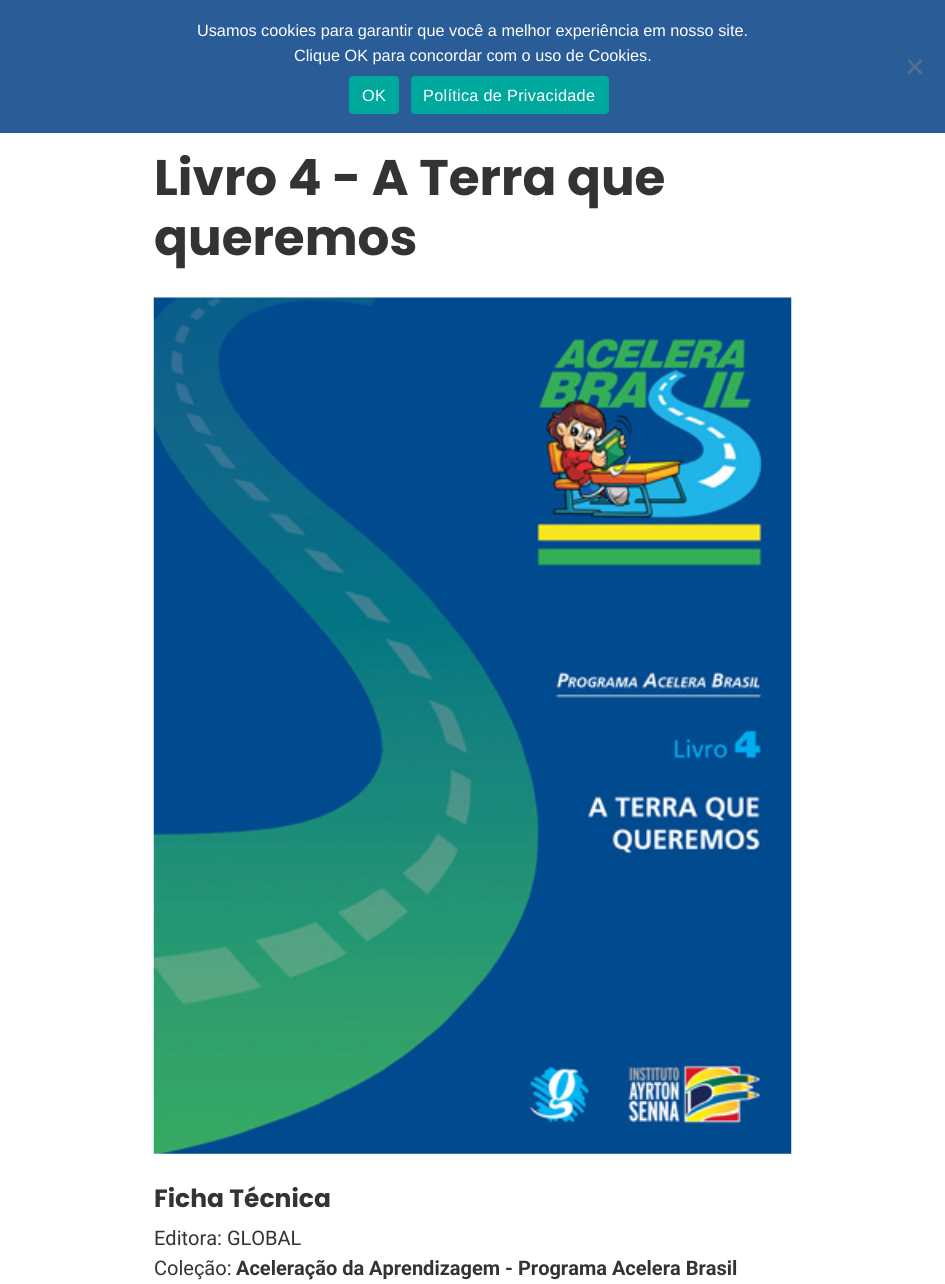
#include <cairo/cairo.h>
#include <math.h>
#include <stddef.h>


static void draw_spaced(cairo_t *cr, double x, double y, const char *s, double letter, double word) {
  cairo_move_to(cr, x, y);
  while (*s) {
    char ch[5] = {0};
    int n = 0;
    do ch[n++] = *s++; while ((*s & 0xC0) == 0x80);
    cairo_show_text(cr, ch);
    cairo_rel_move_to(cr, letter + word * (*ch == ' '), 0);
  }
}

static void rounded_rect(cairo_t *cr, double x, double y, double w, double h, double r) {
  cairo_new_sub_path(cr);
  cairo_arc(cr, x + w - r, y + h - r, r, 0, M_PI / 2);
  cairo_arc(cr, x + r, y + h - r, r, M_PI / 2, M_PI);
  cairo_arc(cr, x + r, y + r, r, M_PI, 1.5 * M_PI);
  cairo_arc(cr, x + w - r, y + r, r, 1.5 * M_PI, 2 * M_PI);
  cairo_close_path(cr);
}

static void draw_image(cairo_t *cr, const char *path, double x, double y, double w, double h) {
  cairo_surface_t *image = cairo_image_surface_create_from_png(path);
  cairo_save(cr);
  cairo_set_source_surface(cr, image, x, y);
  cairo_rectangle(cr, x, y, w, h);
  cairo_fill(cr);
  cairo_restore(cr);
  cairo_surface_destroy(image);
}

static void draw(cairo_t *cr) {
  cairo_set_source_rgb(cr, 1, 1, 1);
  cairo_paint(cr);
  cairo_set_source_rgb(cr, 42 / 255.0, 93 / 255.0, 152 / 255.0);
  cairo_rectangle(cr, 0, 0, 945, 133);
  cairo_fill(cr);
  cairo_set_source_rgb(cr, 85 / 255.0, 111 / 255.0, 140 / 255.0);
  cairo_new_path(cr);
  cairo_move_to(cr, 920.5, 59.5);
  cairo_line_to(cr, 922.5, 61);
  cairo_line_to(cr, 909.5, 74.5);
  cairo_line_to(cr, 907.5, 72.5);
  cairo_close_path(cr);
  cairo_fill(cr);
  cairo_new_path(cr);
  cairo_move_to(cr, 907.5, 61);
  cairo_line_to(cr, 909.5, 59.5);
  cairo_line_to(cr, 922.5, 72.5);
  cairo_line_to(cr, 920.5, 74.5);
  cairo_close_path(cr);
  cairo_fill(cr);
  cairo_set_source_rgb(cr, 0, 169 / 255.0, 157 / 255.0);
  rounded_rect(cr, 349, 76, 50, 38, 4);
  cairo_fill(cr);
  rounded_rect(cr, 411, 76, 198, 38, 4);
  cairo_fill(cr);
  draw_image(cr, "images/1.png", 153, 297, 639, 857);
  cairo_select_font_face(cr, "Liberation Sans", CAIRO_FONT_SLANT_NORMAL, CAIRO_FONT_WEIGHT_NORMAL);
  cairo_set_font_size(cr, 16.25);
  cairo_set_source_rgb(cr, 1, 1, 1);
  cairo_move_to(cr, 197, 36);
  cairo_show_text(cr, "Usamos cookies para garantir que você a melhor experiência em nosso site.");
  cairo_move_to(cr, 294, 61);
  cairo_show_text(cr, "Clique OK para concordar com o uso de Cookies.");
  draw_spaced(cr, 362, 101, "OK", 0.3, 0);
  draw_spaced(cr, 423, 101, "Política de Privacidade", 0.3, 0);
  cairo_select_font_face(cr, "Poppins", CAIRO_FONT_SLANT_NORMAL, CAIRO_FONT_WEIGHT_BOLD);
  cairo_set_font_size(cr, 50);
  cairo_set_source_rgb(cr, 51 / 255.0, 51 / 255.0, 51 / 255.0);
  cairo_move_to(cr, 154, 195);
  cairo_show_text(cr, "Livro 4 - A Terra que");
  cairo_move_to(cr, 154, 255);
  cairo_show_text(cr, "queremos");
  cairo_set_font_size(cr, 25);
  cairo_move_to(cr, 154, 1207);
  cairo_show_text(cr, "Ficha Técnica");
  cairo_select_font_face(cr, "Roboto", CAIRO_FONT_SLANT_NORMAL, CAIRO_FONT_WEIGHT_NORMAL);
  cairo_set_font_size(cr, 20);
  cairo_move_to(cr, 154, 1245);
  cairo_show_text(cr, "Editora: GLOBAL");
  cairo_move_to(cr, 154, 1275);
  cairo_show_text(cr, "Coleção:");
  cairo_select_font_face(cr, "Roboto", CAIRO_FONT_SLANT_NORMAL, CAIRO_FONT_WEIGHT_BOLD);
  cairo_move_to(cr, 236, 1275);
  cairo_show_text(cr, "Aceleração da Aprendizagem - Programa Acelera Brasil");
}

int main(void) {
  cairo_surface_t *surface = cairo_image_surface_create(CAIRO_FORMAT_RGB24, 945, 1284);
  cairo_t *cr = cairo_create(surface);
  cairo_font_options_t *options = cairo_font_options_create();
  cairo_font_options_set_hint_metrics(options, CAIRO_HINT_METRICS_OFF);
  cairo_font_options_set_hint_style(options, CAIRO_HINT_STYLE_NONE);
  cairo_set_font_options(cr, options);
  cairo_set_miter_limit(cr, 4);
  draw(cr);
  cairo_surface_write_to_png(surface, "out.png");
  cairo_font_options_destroy(options);
  cairo_destroy(cr);
  cairo_surface_destroy(surface);
  return 0;
}
